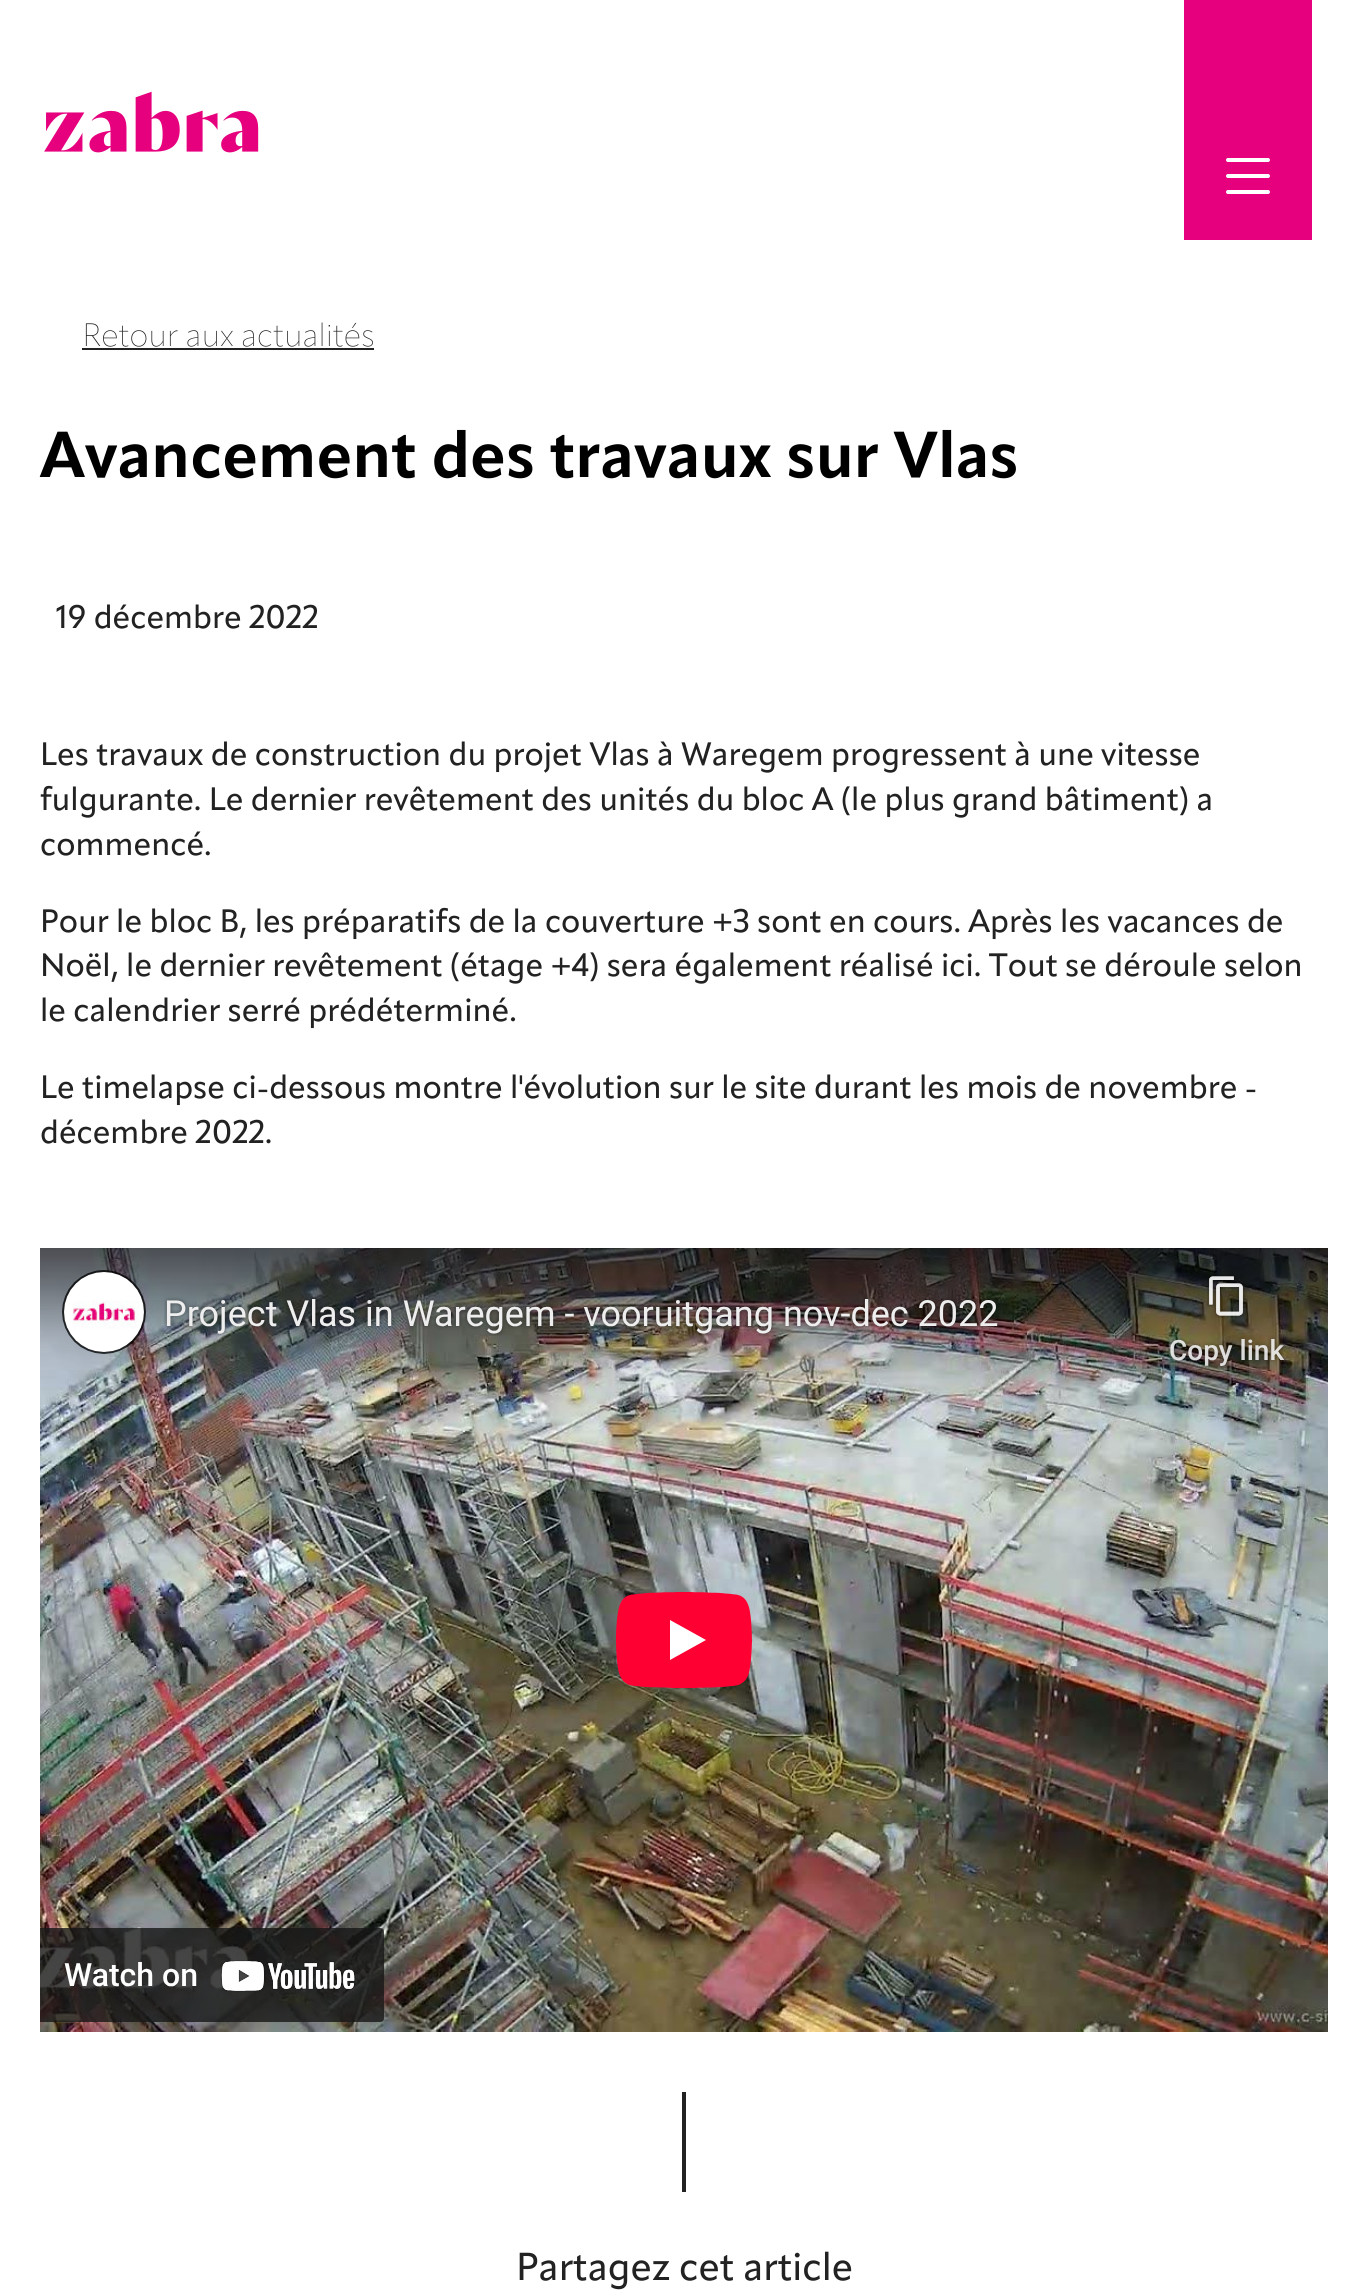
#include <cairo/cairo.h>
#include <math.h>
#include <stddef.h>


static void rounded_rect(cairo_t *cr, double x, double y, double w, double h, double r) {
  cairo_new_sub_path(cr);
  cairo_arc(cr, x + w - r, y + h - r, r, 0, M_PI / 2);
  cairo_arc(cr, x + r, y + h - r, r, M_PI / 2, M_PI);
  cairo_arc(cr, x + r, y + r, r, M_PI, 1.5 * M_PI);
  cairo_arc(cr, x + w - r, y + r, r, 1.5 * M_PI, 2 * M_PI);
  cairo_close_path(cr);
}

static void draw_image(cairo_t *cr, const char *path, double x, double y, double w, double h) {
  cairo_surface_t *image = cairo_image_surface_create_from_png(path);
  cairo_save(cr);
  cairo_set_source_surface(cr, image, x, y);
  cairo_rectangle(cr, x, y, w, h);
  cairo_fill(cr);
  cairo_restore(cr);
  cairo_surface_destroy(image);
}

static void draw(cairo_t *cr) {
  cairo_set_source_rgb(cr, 1, 1, 1);
  cairo_paint(cr);
  draw_image(cr, "images/1.png", 44, 91, 215, 62);
  cairo_set_source_rgb(cr, 230 / 255.0, 0, 126 / 255.0);
  cairo_rectangle(cr, 1184, 0, 128, 240);
  cairo_fill(cr);
  cairo_set_source_rgb(cr, 1, 1, 1);
  rounded_rect(cr, 1226, 174, 44, 4, 2);
  cairo_fill(cr);
  rounded_rect(cr, 1226, 158, 44, 4, 2);
  cairo_fill(cr);
  rounded_rect(cr, 1226, 190, 44, 4, 2);
  cairo_fill(cr);
  cairo_set_source_rgb(cr, 34 / 255.0, 34 / 255.0, 34 / 255.0);
  cairo_rectangle(cr, 82, 348, 292, 2);
  cairo_fill(cr);
  draw_image(cr, "images/2.png", 40, 1248, 1288, 784);
  cairo_rectangle(cr, 682, 2092, 4, 100);
  cairo_fill(cr);
  cairo_select_font_face(cr, "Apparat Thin", CAIRO_FONT_SLANT_NORMAL, CAIRO_FONT_WEIGHT_NORMAL);
  cairo_set_font_size(cr, 32);
  cairo_move_to(cr, 82, 346);
  cairo_show_text(cr, "Retour aux actualités");
  cairo_select_font_face(cr, "Apparat", CAIRO_FONT_SLANT_NORMAL, CAIRO_FONT_WEIGHT_BOLD);
  cairo_set_font_size(cr, 64);
  cairo_set_source_rgb(cr, 0, 0, 0);
  cairo_move_to(cr, 40, 477);
  cairo_show_text(cr, "Avancement des travaux sur Vlas");
  cairo_select_font_face(cr, "Apparat Medium", CAIRO_FONT_SLANT_NORMAL, CAIRO_FONT_WEIGHT_NORMAL);
  cairo_set_font_size(cr, 32);
  cairo_set_source_rgb(cr, 34 / 255.0, 34 / 255.0, 34 / 255.0);
  cairo_move_to(cr, 56, 628);
  cairo_show_text(cr, "19 décembre 2022");
  cairo_move_to(cr, 40, 765);
  cairo_show_text(cr, "Les travaux de construction du projet Vlas à Waregem progressent à une vitesse");
  cairo_move_to(cr, 40, 810);
  cairo_show_text(cr, "fulgurante. Le dernier revêtement des unités du bloc A (le plus grand bâtiment) a");
  cairo_move_to(cr, 40, 855);
  cairo_show_text(cr, "commencé.");
  cairo_move_to(cr, 40, 932);
  cairo_show_text(cr, "Pour le bloc B, les préparatifs de la couverture +3 sont en cours. Après les vacances de");
  cairo_move_to(cr, 40, 976);
  cairo_show_text(cr, "Noël, le dernier revêtement (étage +4) sera également réalisé ici. Tout se déroule selon");
  cairo_move_to(cr, 40, 1021);
  cairo_show_text(cr, "le calendrier serré prédéterminé.");
  cairo_move_to(cr, 40, 1098);
  cairo_show_text(cr, "Le timelapse ci-dessous montre l'évolution sur le site durant les mois de novembre -");
  cairo_move_to(cr, 40, 1143);
  cairo_show_text(cr, "décembre 2022.");
  cairo_set_font_size(cr, 38.5);
  cairo_move_to(cr, 516, 2280);
  cairo_show_text(cr, "Partagez cet article");
}

int main(void) {
  cairo_surface_t *surface = cairo_image_surface_create(CAIRO_FORMAT_RGB24, 1368, 2293);
  cairo_t *cr = cairo_create(surface);
  cairo_font_options_t *options = cairo_font_options_create();
  cairo_font_options_set_hint_metrics(options, CAIRO_HINT_METRICS_OFF);
  cairo_font_options_set_hint_style(options, CAIRO_HINT_STYLE_NONE);
  cairo_set_font_options(cr, options);
  cairo_set_miter_limit(cr, 4);
  draw(cr);
  cairo_surface_write_to_png(surface, "out.png");
  cairo_font_options_destroy(options);
  cairo_destroy(cr);
  cairo_surface_destroy(surface);
  return 0;
}
